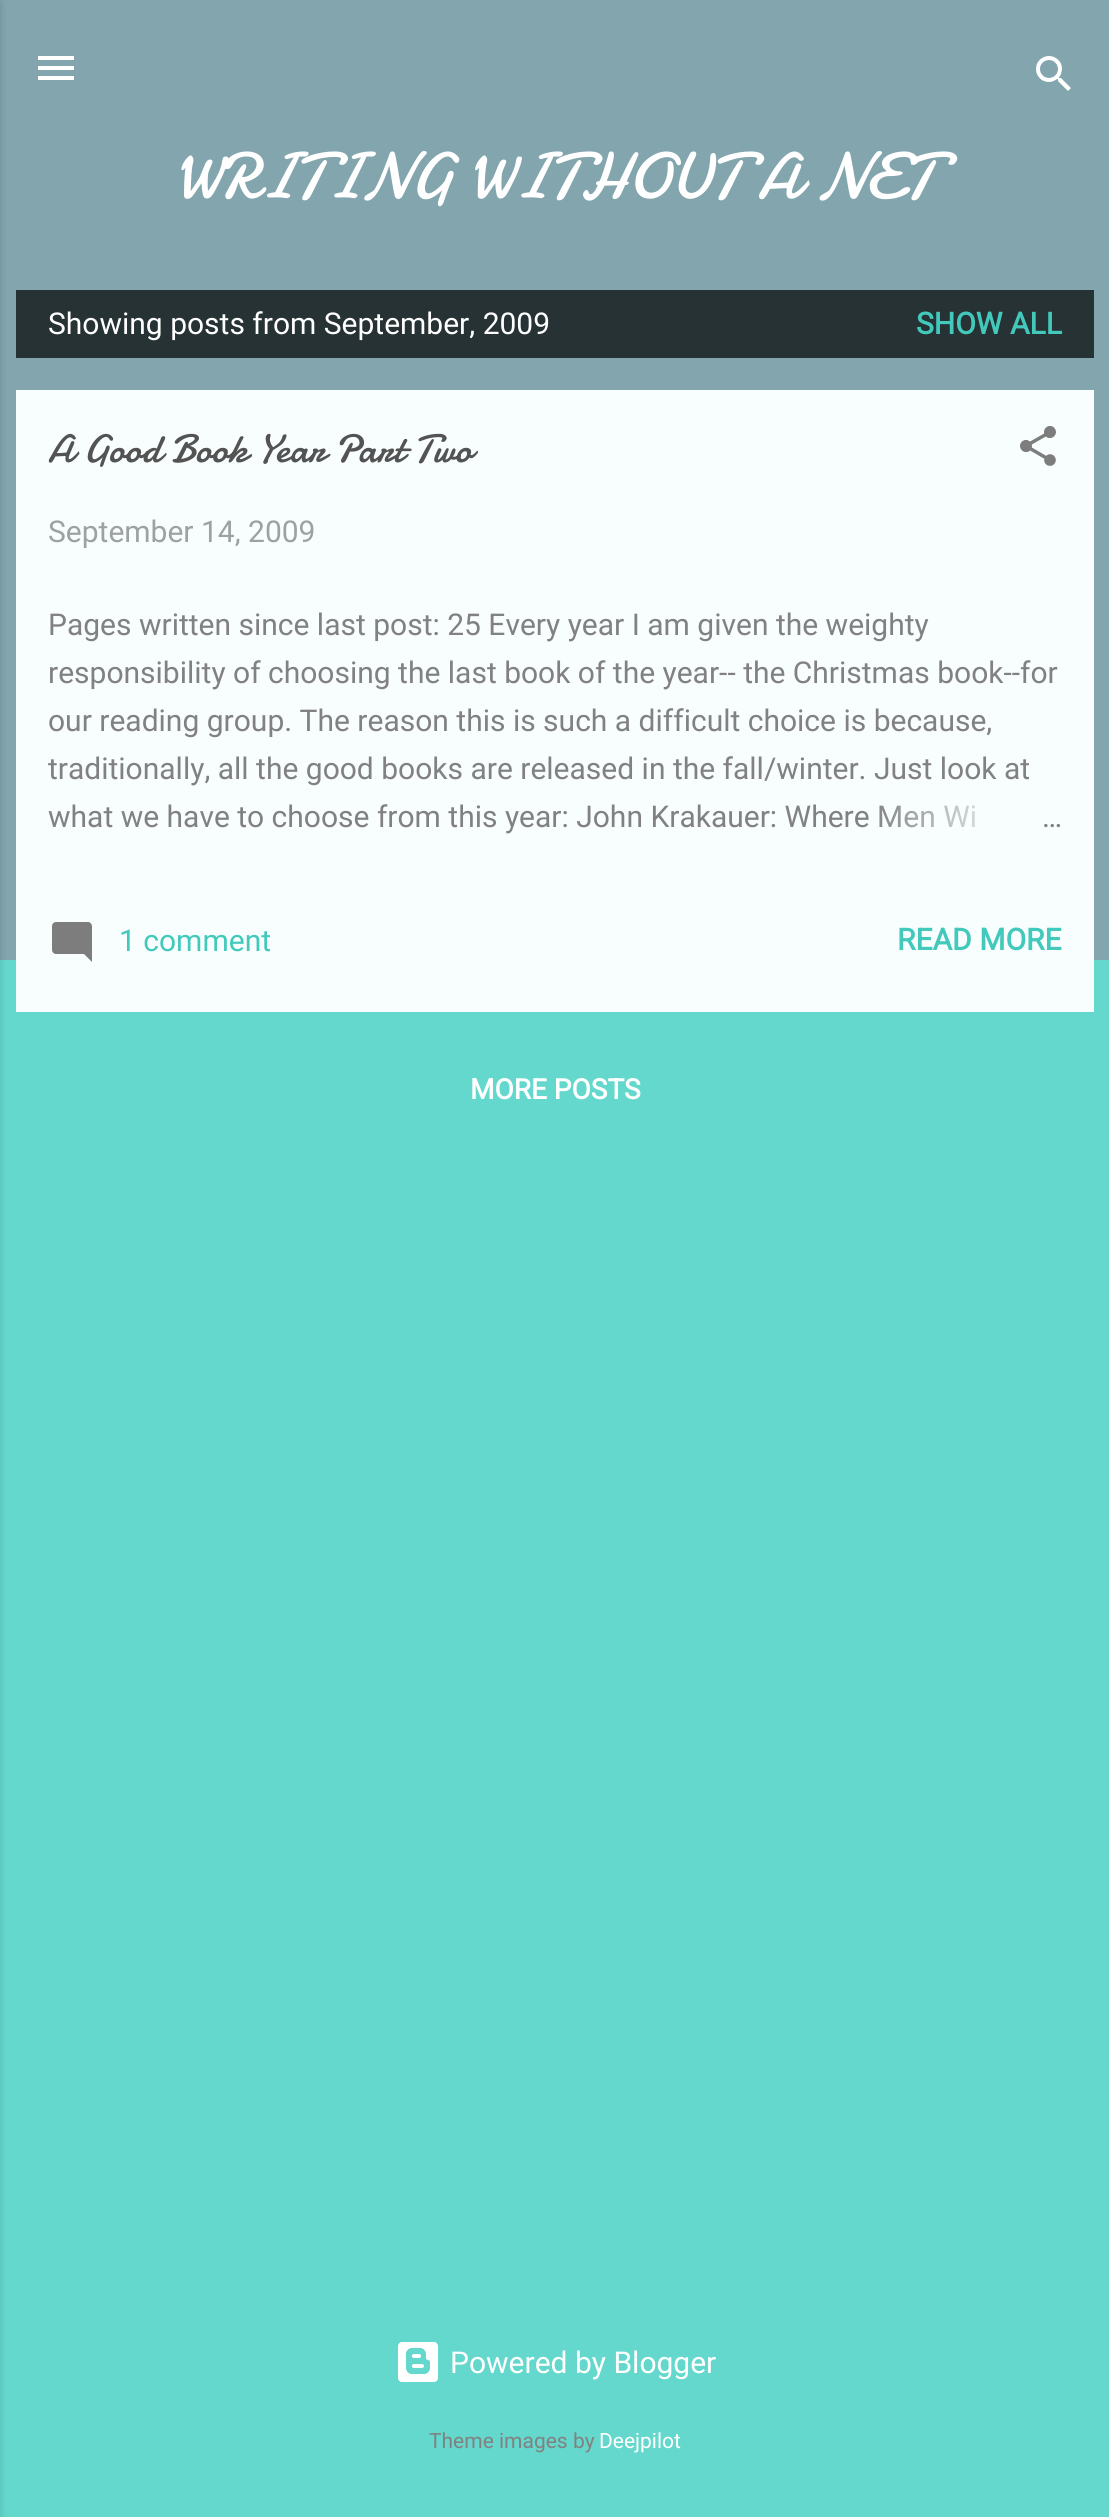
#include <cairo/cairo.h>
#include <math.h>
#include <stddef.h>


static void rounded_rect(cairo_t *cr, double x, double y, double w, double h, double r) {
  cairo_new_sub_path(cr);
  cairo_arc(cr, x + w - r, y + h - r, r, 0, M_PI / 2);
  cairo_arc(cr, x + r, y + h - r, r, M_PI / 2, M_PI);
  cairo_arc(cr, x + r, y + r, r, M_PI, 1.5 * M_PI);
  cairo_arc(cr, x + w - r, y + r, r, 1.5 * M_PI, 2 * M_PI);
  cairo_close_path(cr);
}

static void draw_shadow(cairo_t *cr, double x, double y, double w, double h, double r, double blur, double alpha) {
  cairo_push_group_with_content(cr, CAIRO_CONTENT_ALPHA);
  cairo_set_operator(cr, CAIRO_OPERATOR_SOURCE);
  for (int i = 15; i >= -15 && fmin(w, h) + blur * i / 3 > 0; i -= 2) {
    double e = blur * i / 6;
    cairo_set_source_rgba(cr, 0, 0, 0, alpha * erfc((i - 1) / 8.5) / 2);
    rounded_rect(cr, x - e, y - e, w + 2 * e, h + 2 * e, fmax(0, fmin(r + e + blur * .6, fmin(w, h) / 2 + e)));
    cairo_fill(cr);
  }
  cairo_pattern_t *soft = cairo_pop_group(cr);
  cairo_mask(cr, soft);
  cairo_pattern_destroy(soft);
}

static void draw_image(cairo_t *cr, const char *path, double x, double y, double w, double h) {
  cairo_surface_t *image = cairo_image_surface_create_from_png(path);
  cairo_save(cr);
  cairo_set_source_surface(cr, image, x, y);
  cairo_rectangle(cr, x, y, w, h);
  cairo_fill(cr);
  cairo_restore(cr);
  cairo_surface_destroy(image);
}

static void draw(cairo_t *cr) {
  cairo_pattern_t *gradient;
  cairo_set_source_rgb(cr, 100 / 255.0, 216 / 255.0, 204 / 255.0);
  cairo_paint(cr);
  cairo_set_source_rgb(cr, 130 / 255.0, 165 / 255.0, 174 / 255.0);
  cairo_rectangle(cr, 0, 0, 1109, 960);
  cairo_fill(cr);
  cairo_set_source_rgb(cr, 0, 0, 0);
  draw_shadow(cr, -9, 2, 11, 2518, 0, 3, 0.1);
  draw_image(cr, "images/1.png", 38, 56, 36, 24);
  draw_image(cr, "images/2.png", 1036, 56, 35, 35);
  cairo_set_source_rgb(cr, 39 / 255.0, 50 / 255.0, 52 / 255.0);
  cairo_rectangle(cr, 16, 290, 1078, 68);
  cairo_fill(cr);
  cairo_set_source_rgb(cr, 248 / 255.0, 254 / 255.0, 254 / 255.0);
  cairo_rectangle(cr, 16, 390, 1078, 622);
  cairo_fill(cr);
  draw_image(cr, "images/3.png", 1020, 426, 36, 40);
  draw_image(cr, "images/4.png", 52, 922, 40, 40);
  draw_image(cr, "images/5.png", 398, 2342, 40, 40);
  cairo_select_font_face(cr, "Damion", CAIRO_FONT_SLANT_NORMAL, CAIRO_FONT_WEIGHT_NORMAL);
  cairo_set_font_size(cr, 66.1);
  cairo_set_source_rgb(cr, 1, 1, 1);
  cairo_move_to(cr, 175, 198);
  cairo_show_text(cr, "WRITING WITHOUT A NET");
  cairo_select_font_face(cr, "Roboto", CAIRO_FONT_SLANT_NORMAL, CAIRO_FONT_WEIGHT_NORMAL);
  cairo_set_font_size(cr, 30);
  cairo_move_to(cr, 48, 334);
  cairo_show_text(cr, "Showing posts from September, 2009");
  cairo_select_font_face(cr, "Roboto", CAIRO_FONT_SLANT_NORMAL, CAIRO_FONT_WEIGHT_BOLD);
  cairo_set_source_rgb(cr, 67 / 255.0, 201 / 255.0, 188 / 255.0);
  cairo_move_to(cr, 916, 334);
  cairo_show_text(cr, "SHOW ALL");
  cairo_select_font_face(cr, "Damion", CAIRO_FONT_SLANT_NORMAL, CAIRO_FONT_WEIGHT_NORMAL);
  cairo_set_font_size(cr, 40);
  cairo_set_source_rgb(cr, 83 / 255.0, 83 / 255.0, 83 / 255.0);
  cairo_move_to(cr, 48, 462);
  cairo_show_text(cr, "A Good Book Year Part Two");
  cairo_select_font_face(cr, "Roboto", CAIRO_FONT_SLANT_NORMAL, CAIRO_FONT_WEIGHT_NORMAL);
  cairo_set_font_size(cr, 30);
  cairo_set_source_rgb(cr, 158 / 255.0, 161 / 255.0, 161 / 255.0);
  cairo_move_to(cr, 48, 542);
  cairo_show_text(cr, "September 14, 2009");
  cairo_set_source_rgb(cr, 129 / 255.0, 129 / 255.0, 129 / 255.0);
  cairo_move_to(cr, 48, 635);
  cairo_show_text(cr, "Pages written since last post: 25 Every year I am given the weighty");
  cairo_move_to(cr, 48, 683);
  cairo_show_text(cr, "responsibility of choosing the last book of the year-- the Christmas book--for");
  cairo_move_to(cr, 48, 731);
  cairo_show_text(cr, "our reading group. The reason this is such a difficult choice is because,");
  cairo_move_to(cr, 48, 779);
  cairo_show_text(cr, "traditionally, all the good books are released in the fall/winter. Just look at");
  cairo_move_to(cr, 48, 827);
  cairo_show_text(cr, "what we have to choose from this year: John Krakauer: Where Men Wi");
  gradient = cairo_pattern_create_linear(1062, 818, 870, 818);
  cairo_pattern_add_color_stop_rgba(gradient, 0, 248 / 255.0, 254 / 255.0, 254 / 255.0, 1);
  cairo_pattern_add_color_stop_rgba(gradient, 0.2, 248 / 255.0, 254 / 255.0, 254 / 255.0, 1);
  cairo_pattern_add_color_stop_rgba(gradient, 1, 248 / 255.0, 254 / 255.0, 254 / 255.0, 0);
  cairo_set_source(cr, gradient);
  cairo_pattern_destroy(gradient);
  cairo_rectangle(cr, 879, 805, 97, 23);
  cairo_fill(cr);
  cairo_set_source_rgb(cr, 129 / 255.0, 129 / 255.0, 129 / 255.0);
  cairo_move_to(cr, 1042, 827);
  cairo_show_text(cr, "…");
  cairo_set_source_rgb(cr, 67 / 255.0, 201 / 255.0, 188 / 255.0);
  cairo_move_to(cr, 119, 951);
  cairo_show_text(cr, "1 comment");
  cairo_select_font_face(cr, "Roboto", CAIRO_FONT_SLANT_NORMAL, CAIRO_FONT_WEIGHT_BOLD);
  cairo_move_to(cr, 897, 950);
  cairo_show_text(cr, "READ MORE");
  cairo_set_font_size(cr, 28);
  cairo_set_source_rgb(cr, 1, 1, 1);
  cairo_move_to(cr, 470, 1099);
  cairo_show_text(cr, "MORE POSTS");
  cairo_select_font_face(cr, "Roboto", CAIRO_FONT_SLANT_NORMAL, CAIRO_FONT_WEIGHT_NORMAL);
  cairo_set_font_size(cr, 30);
  cairo_move_to(cr, 450, 2373);
  cairo_show_text(cr, "Powered by Blogger");
  cairo_set_font_size(cr, 21);
  cairo_set_source_rgb(cr, 129 / 255.0, 129 / 255.0, 129 / 255.0);
  cairo_move_to(cr, 429, 2448);
  cairo_show_text(cr, "Theme images by");
  cairo_set_source_rgb(cr, 1, 1, 1);
  cairo_move_to(cr, 599, 2448);
  cairo_show_text(cr, "Deejpilot");
}

int main(void) {
  cairo_surface_t *surface = cairo_image_surface_create(CAIRO_FORMAT_RGB24, 1109, 2517);
  cairo_t *cr = cairo_create(surface);
  cairo_font_options_t *options = cairo_font_options_create();
  cairo_font_options_set_hint_metrics(options, CAIRO_HINT_METRICS_OFF);
  cairo_font_options_set_hint_style(options, CAIRO_HINT_STYLE_NONE);
  cairo_set_font_options(cr, options);
  cairo_set_miter_limit(cr, 4);
  draw(cr);
  cairo_surface_write_to_png(surface, "out.png");
  cairo_font_options_destroy(options);
  cairo_destroy(cr);
  cairo_surface_destroy(surface);
  return 0;
}
